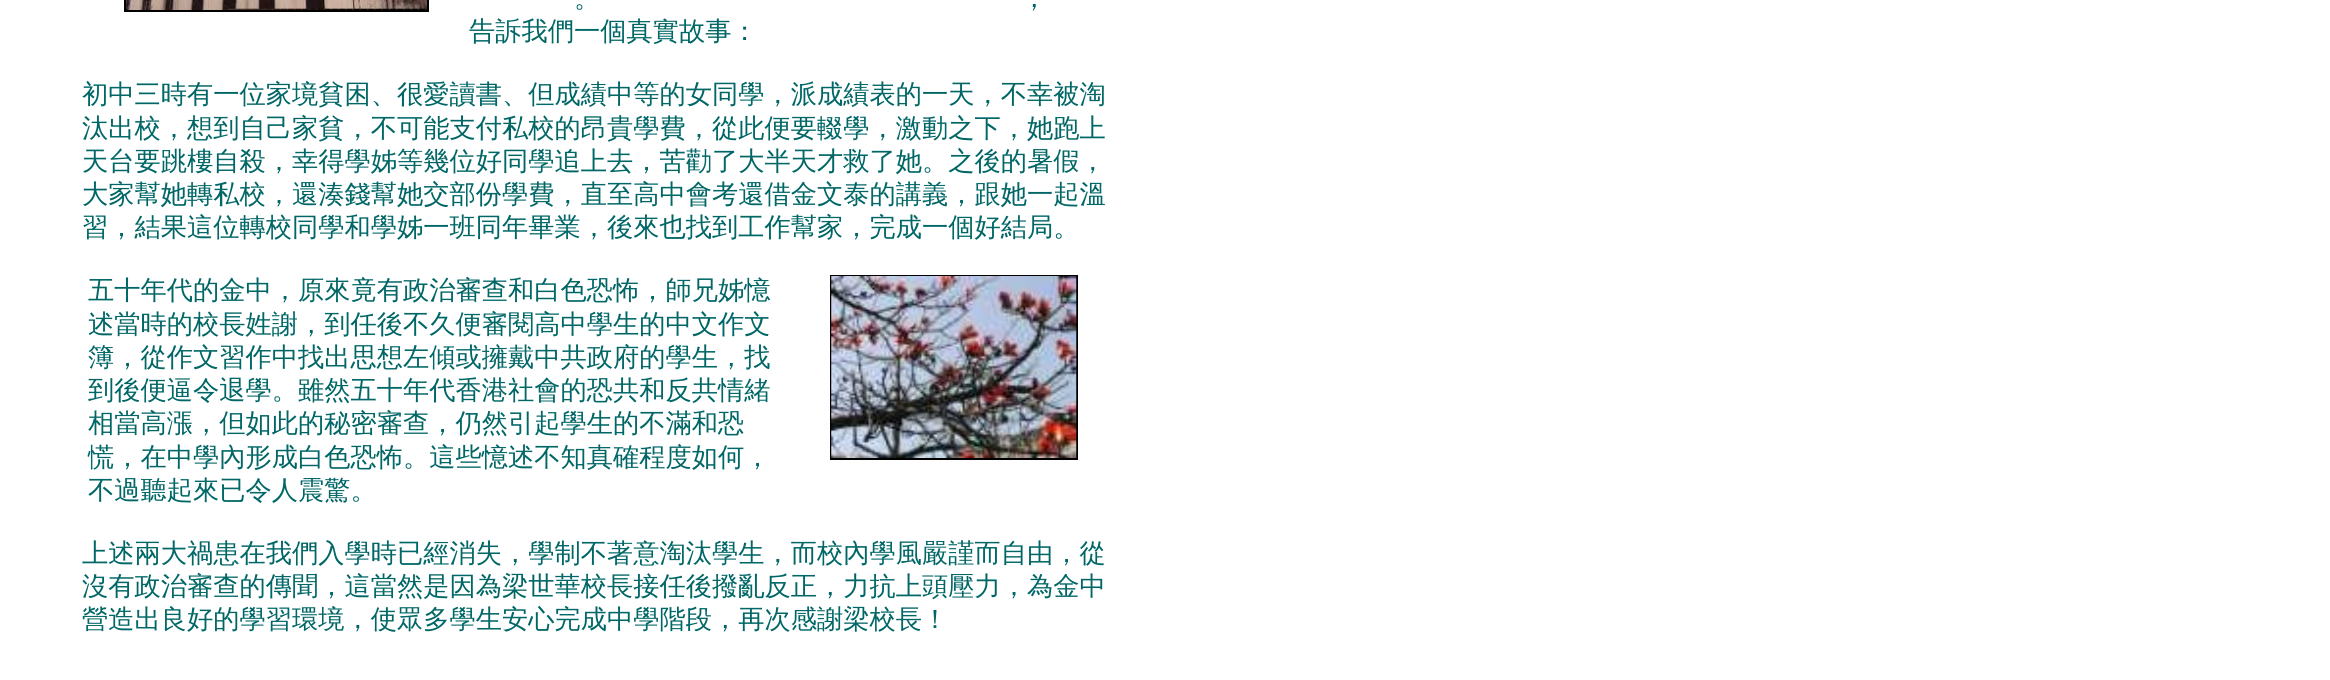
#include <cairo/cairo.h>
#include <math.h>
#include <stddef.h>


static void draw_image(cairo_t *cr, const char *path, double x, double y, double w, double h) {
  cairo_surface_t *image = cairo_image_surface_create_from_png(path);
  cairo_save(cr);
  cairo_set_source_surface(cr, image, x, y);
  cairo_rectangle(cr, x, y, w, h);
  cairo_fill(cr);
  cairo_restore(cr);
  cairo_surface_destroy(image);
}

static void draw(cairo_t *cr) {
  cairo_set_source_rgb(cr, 1, 1, 1);
  cairo_paint(cr);
  cairo_rectangle(cr, 125, -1, 303, 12);
  cairo_set_source_rgb(cr, 0, 0, 0);
  cairo_stroke(cr);
  draw_image(cr, "images/1.png", 126, 0, 301, 10);
  cairo_rectangle(cr, 831, 276, 246, 183);
  cairo_stroke(cr);
  draw_image(cr, "images/2.png", 831, 276, 246, 182);
  cairo_select_font_face(cr, "WenQuanYi Zen Hei Medium", CAIRO_FONT_SLANT_NORMAL, CAIRO_FONT_WEIGHT_NORMAL);
  cairo_set_font_size(cr, 26.25);
  cairo_set_source_rgb(cr, 0, 102 / 255.0, 102 / 255.0);
  cairo_move_to(cr, 574, 7);
  cairo_show_text(cr, "。");
  cairo_move_to(cr, 1021, 7);
  cairo_show_text(cr, "，");
  cairo_move_to(cr, 469, 40);
  cairo_show_text(cr, "告訴我們一個真實故事：");
  cairo_move_to(cr, 82, 103);
  cairo_show_text(cr, "初中三時有一位家境貧困、很愛讀書、但成績中等的女同學，派成績表的一天，不幸被淘");
  cairo_move_to(cr, 82, 137);
  cairo_show_text(cr, "汰出校，想到自己家貧，不可能支付私校的昂貴學費，從此便要輟學，激動之下，她跑上");
  cairo_move_to(cr, 82, 170);
  cairo_show_text(cr, "天台要跳樓自殺，幸得學姊等幾位好同學追上去，苦勸了大半天才救了她。之後的暑假，");
  cairo_move_to(cr, 82, 203);
  cairo_show_text(cr, "大家幫她轉私校，還湊錢幫她交部份學費，直至高中會考還借金文泰的講義，跟她一起溫");
  cairo_move_to(cr, 82, 236);
  cairo_show_text(cr, "習，結果這位轉校同學和學姊一班同年畢業，後來也找到工作幫家，完成一個好結局。");
  cairo_move_to(cr, 88, 299);
  cairo_show_text(cr, "五十年代的金中，原來竟有政治審查和白色恐怖，師兄姊憶");
  cairo_move_to(cr, 88, 333);
  cairo_show_text(cr, "述當時的校長姓謝，到任後不久便審閱高中學生的中文作文");
  cairo_move_to(cr, 88, 366);
  cairo_show_text(cr, "簿，從作文習作中找出思想左傾或擁戴中共政府的學生，找");
  cairo_move_to(cr, 88, 399);
  cairo_show_text(cr, "到後便逼令退學。雖然五十年代香港社會的恐共和反共情緒");
  cairo_move_to(cr, 88, 432);
  cairo_show_text(cr, "相當高漲，但如此的秘密審查，仍然引起學生的不滿和恐");
  cairo_move_to(cr, 88, 466);
  cairo_show_text(cr, "慌，在中學內形成白色恐怖。這些憶述不知真確程度如何，");
  cairo_move_to(cr, 88, 499);
  cairo_show_text(cr, "不過聽起來已令人震驚。");
  cairo_move_to(cr, 82, 562);
  cairo_show_text(cr, "上述兩大禍患在我們入學時已經消失，學制不著意淘汰學生，而校內學風嚴謹而自由，從");
  cairo_move_to(cr, 82, 595);
  cairo_show_text(cr, "沒有政治審查的傳聞，這當然是因為梁世華校長接任後撥亂反正，力抗上頭壓力，為金中");
  cairo_move_to(cr, 82, 628);
  cairo_show_text(cr, "營造出良好的學習環境，使眾多學生安心完成中學階段，再次感謝梁校長！");
}

int main(void) {
  cairo_surface_t *surface = cairo_image_surface_create(CAIRO_FORMAT_RGB24, 2330, 680);
  cairo_t *cr = cairo_create(surface);
  cairo_font_options_t *options = cairo_font_options_create();
  cairo_font_options_set_hint_metrics(options, CAIRO_HINT_METRICS_OFF);
  cairo_font_options_set_hint_style(options, CAIRO_HINT_STYLE_NONE);
  cairo_set_font_options(cr, options);
  cairo_set_miter_limit(cr, 4);
  draw(cr);
  cairo_surface_write_to_png(surface, "out.png");
  cairo_font_options_destroy(options);
  cairo_destroy(cr);
  cairo_surface_destroy(surface);
  return 0;
}
